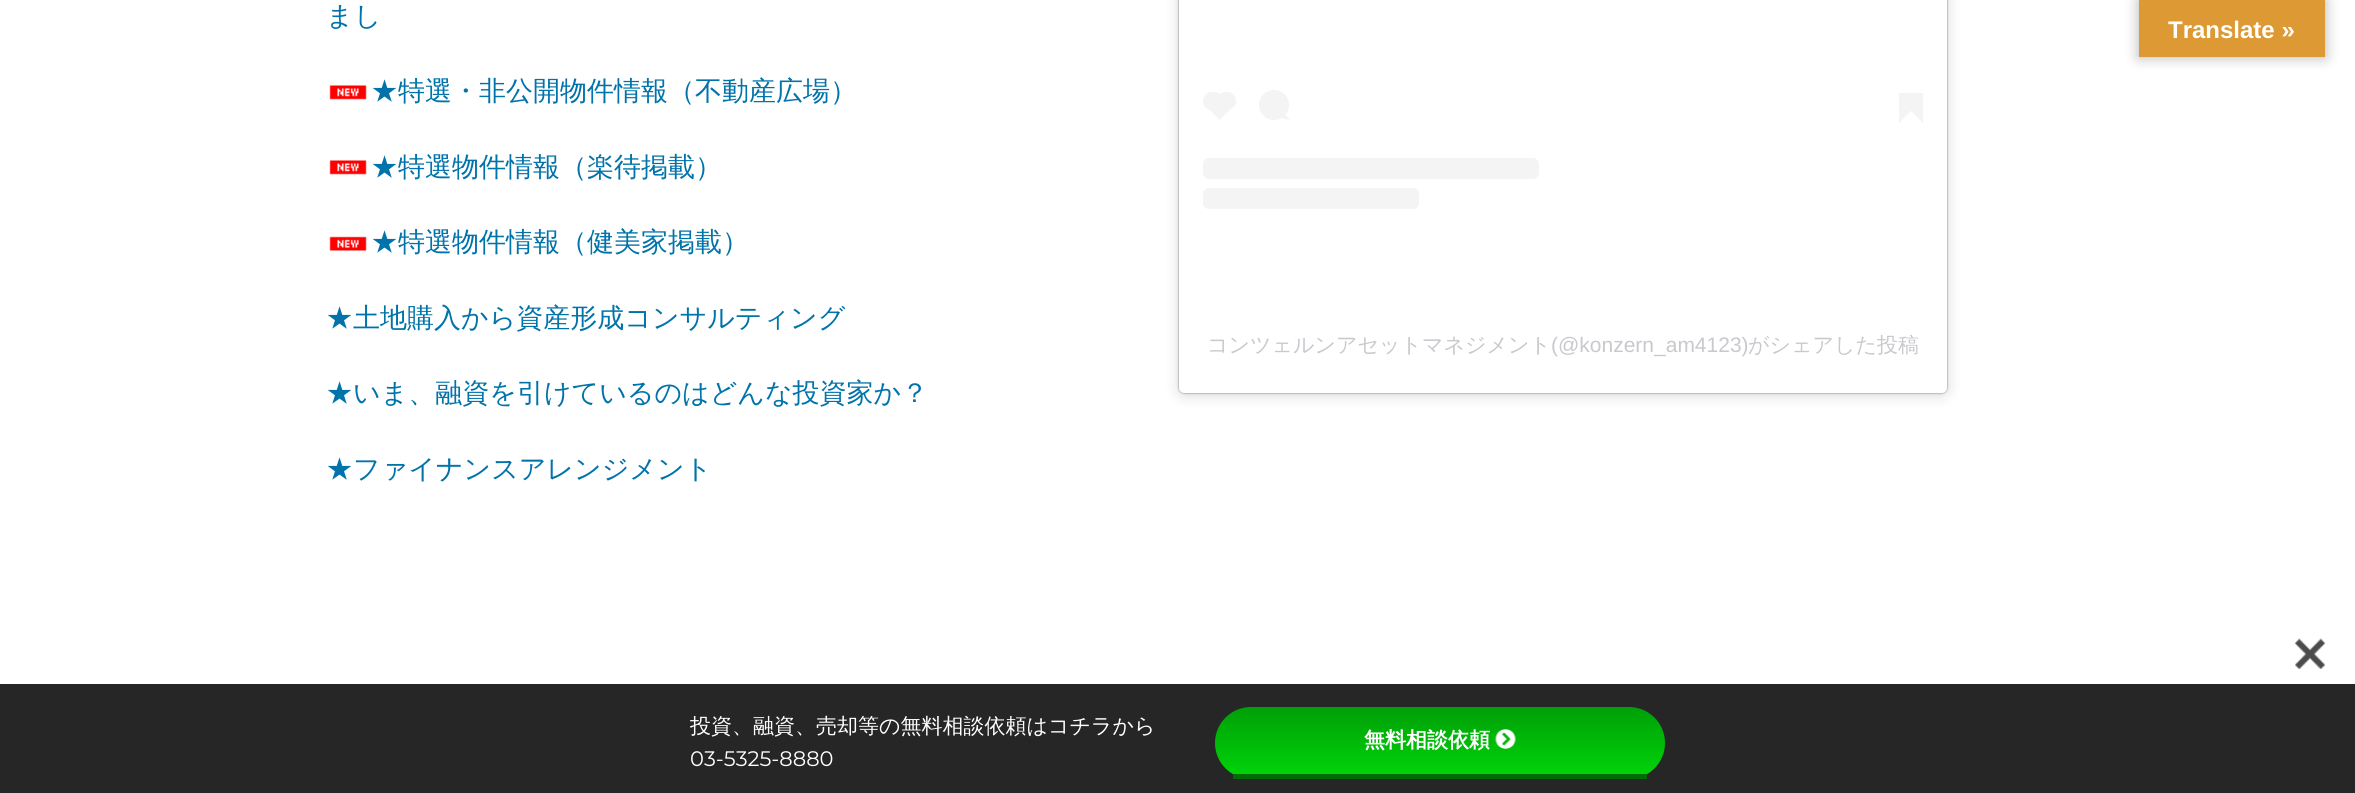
#include <cairo/cairo.h>
#include <math.h>
#include <stddef.h>


static void rounded_rect(cairo_t *cr, double x, double y, double w, double h, double r) {
  cairo_new_sub_path(cr);
  cairo_arc(cr, x + w - r, y + h - r, r, 0, M_PI / 2);
  cairo_arc(cr, x + r, y + h - r, r, M_PI / 2, M_PI);
  cairo_arc(cr, x + r, y + r, r, M_PI, 1.5 * M_PI);
  cairo_arc(cr, x + w - r, y + r, r, 1.5 * M_PI, 2 * M_PI);
  cairo_close_path(cr);
}

static void draw_shadow(cairo_t *cr, double x, double y, double w, double h, double r, double blur, double alpha) {
  cairo_push_group_with_content(cr, CAIRO_CONTENT_ALPHA);
  cairo_set_operator(cr, CAIRO_OPERATOR_SOURCE);
  for (int i = 15; i >= -15 && fmin(w, h) + blur * i / 3 > 0; i -= 2) {
    double e = blur * i / 6;
    cairo_set_source_rgba(cr, 0, 0, 0, alpha * erfc((i - 1) / 8.5) / 2);
    rounded_rect(cr, x - e, y - e, w + 2 * e, h + 2 * e, fmax(0, fmin(r + e + blur * .6, fmin(w, h) / 2 + e)));
    cairo_fill(cr);
  }
  cairo_pattern_t *soft = cairo_pop_group(cr);
  cairo_mask(cr, soft);
  cairo_pattern_destroy(soft);
}

static void draw_image(cairo_t *cr, const char *path, double x, double y, double w, double h) {
  cairo_surface_t *image = cairo_image_surface_create_from_png(path);
  cairo_save(cr);
  cairo_set_source_surface(cr, image, x, y);
  cairo_rectangle(cr, x, y, w, h);
  cairo_fill(cr);
  cairo_restore(cr);
  cairo_surface_destroy(image);
}

static void draw(cairo_t *cr) {
  cairo_pattern_t *gradient;
  cairo_set_source_rgb(cr, 1, 1, 1);
  cairo_paint(cr);
  draw_image(cr, "images/1.png", 329, 85, 38, 15);
  draw_image(cr, "images/1.png", 329, 160, 38, 15);
  draw_image(cr, "images/2.png", 329, 236, 38, 15);
  cairo_set_source_rgb(cr, 0, 0, 0);
  draw_shadow(cr, 1179, -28, 768, 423, 5, 7.5, 0.15);
  draw_shadow(cr, 1179, -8, 768, 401, 5, 1, 0.5);
  cairo_set_source_rgb(cr, 1, 1, 1);
  rounded_rect(cr, 1179, -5, 768, 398, 5);
  cairo_fill(cr);
  cairo_set_source_rgb(cr, 244 / 255.0, 244 / 255.0, 244 / 255.0);
  rounded_rect(cr, 1203, 92, 20, 18, 9);
  cairo_fill(cr);
  cairo_new_path(cr);
  cairo_move_to(cr, 1206.5, 106.5);
  cairo_line_to(cr, 1219.5, 93.5);
  cairo_line_to(cr, 1233, 106.5);
  cairo_line_to(cr, 1219.5, 120);
  cairo_close_path(cr);
  cairo_fill(cr);
  rounded_rect(cr, 1217, 92, 19, 18, 9);
  cairo_fill(cr);
  cairo_arc(cr, 1274, 105, 15, 0, 2 * M_PI);
  cairo_fill(cr);
  cairo_new_path(cr);
  cairo_move_to(cr, 1281, 118);
  cairo_line_to(cr, 1284, 113);
  cairo_line_to(cr, 1290, 120);
  cairo_close_path(cr);
  cairo_fill(cr);
  cairo_rectangle(cr, 1899, 93, 24, 18);
  cairo_fill(cr);
  cairo_new_path(cr);
  cairo_move_to(cr, 1899, 111);
  cairo_line_to(cr, 1911, 111);
  cairo_line_to(cr, 1899, 123);
  cairo_close_path(cr);
  cairo_fill(cr);
  cairo_new_path(cr);
  cairo_move_to(cr, 1911, 111);
  cairo_line_to(cr, 1923, 111);
  cairo_line_to(cr, 1923, 123);
  cairo_close_path(cr);
  cairo_fill(cr);
  rounded_rect(cr, 1203, 158, 336, 21, 6);
  cairo_fill(cr);
  rounded_rect(cr, 1203, 188, 216, 21, 6);
  cairo_fill(cr);
  cairo_set_source_rgb(cr, 0, 0, 0);
  draw_shadow(cr, 2139, 0, 186, 57, 0, 7, 0.3);
  cairo_set_source_rgb(cr, 221 / 255.0, 153 / 255.0, 51 / 255.0);
  cairo_rectangle(cr, 2139, 0, 186, 57);
  cairo_fill(cr);
  cairo_set_source_rgba(cr, 0, 0, 0, 0.85);
  cairo_rectangle(cr, 0, 684, 2355, 109);
  cairo_fill(cr);
  draw_image(cr, "images/3.png", 2295, 638, 30, 31);
  cairo_save(cr);
  rounded_rect(cr, 1215, 707, 450, 72, 36);
  cairo_clip(cr);
  gradient = cairo_pattern_create_linear(1440, 707, 1440, 774);
  cairo_pattern_add_color_stop_rgba(gradient, 0, 0, 159 / 255.0, 7 / 255.0, 1);
  cairo_pattern_add_color_stop_rgba(gradient, 1, 0, 210 / 255.0, 9 / 255.0, 1);
  cairo_set_source(cr, gradient);
  cairo_pattern_destroy(gradient);
  cairo_new_path(cr);
  cairo_move_to(cr, 1251, 707);
  cairo_line_to(cr, 1629, 707);
  cairo_curve_to(cr, 1649, 707, 1665, 723, 1665, 743);
  cairo_line_to(cr, 1665, 774);
  cairo_line_to(cr, 1215, 774);
  cairo_line_to(cr, 1215, 743);
  cairo_curve_to(cr, 1215, 723, 1231, 707, 1251, 707);
  cairo_close_path(cr);
  cairo_fill(cr);
  cairo_restore(cr);
  cairo_set_source_rgb(cr, 0, 108 / 255.0, 5 / 255.0);
  cairo_rectangle(cr, 1233, 774, 414, 5);
  cairo_fill(cr);
  draw_image(cr, "images/4.png", 1495, 729, 21, 20);
  cairo_select_font_face(cr, "WenQuanYi Zen Hei Medium", CAIRO_FONT_SLANT_NORMAL, CAIRO_FONT_WEIGHT_NORMAL);
  cairo_set_font_size(cr, 27);
  cairo_set_source_rgb(cr, 0, 115 / 255.0, 170 / 255.0);
  cairo_move_to(cr, 326, 25);
  cairo_show_text(cr, "まし");
  cairo_move_to(cr, 371, 100);
  cairo_show_text(cr, "★特選・非公開物件情報（不動産広場）");
  cairo_move_to(cr, 371, 176);
  cairo_show_text(cr, "★特選物件情報（楽待掲載）");
  cairo_move_to(cr, 371, 251);
  cairo_show_text(cr, "★特選物件情報（健美家掲載）");
  cairo_move_to(cr, 326, 327);
  cairo_show_text(cr, "★土地購入から資産形成コンサルティング");
  cairo_move_to(cr, 326, 402);
  cairo_show_text(cr, "★いま、融資を引けているのはどんな投資家か？");
  cairo_move_to(cr, 326, 478);
  cairo_show_text(cr, "★ファイナンスアレンジメント");
  cairo_set_font_size(cr, 21);
  cairo_set_source_rgb(cr, 201 / 255.0, 200 / 255.0, 205 / 255.0);
  cairo_move_to(cr, 1207, 352);
  cairo_show_text(cr, "コンツェルンアセットマネジメント");
  cairo_select_font_face(cr, "Liberation Sans", CAIRO_FONT_SLANT_NORMAL, CAIRO_FONT_WEIGHT_NORMAL);
  cairo_move_to(cr, 1551, 352);
  cairo_show_text(cr, "(@konzern_am4123)");
  cairo_select_font_face(cr, "WenQuanYi Zen Hei Medium", CAIRO_FONT_SLANT_NORMAL, CAIRO_FONT_WEIGHT_NORMAL);
  cairo_move_to(cr, 1748, 352);
  cairo_show_text(cr, "がシェアした投稿");
  cairo_select_font_face(cr, "Liberation Sans", CAIRO_FONT_SLANT_NORMAL, CAIRO_FONT_WEIGHT_BOLD);
  cairo_set_font_size(cr, 24);
  cairo_set_source_rgb(cr, 1, 1, 1);
  cairo_move_to(cr, 2168, 38);
  cairo_show_text(cr, "Translate »");
  cairo_select_font_face(cr, "WenQuanYi Zen Hei Medium", CAIRO_FONT_SLANT_NORMAL, CAIRO_FONT_WEIGHT_NORMAL);
  cairo_set_font_size(cr, 21);
  cairo_move_to(cr, 690, 733);
  cairo_show_text(cr, "投資、融資、売却等の無料相談依頼はコチラから");
  cairo_select_font_face(cr, "Montserrat Thin", CAIRO_FONT_SLANT_NORMAL, CAIRO_FONT_WEIGHT_NORMAL);
  cairo_move_to(cr, 690, 766);
  cairo_show_text(cr, "03-5325-8880");
  cairo_select_font_face(cr, "WenQuanYi Zen Hei", CAIRO_FONT_SLANT_NORMAL, CAIRO_FONT_WEIGHT_BOLD);
  cairo_move_to(cr, 1364, 747);
  cairo_show_text(cr, "無料相談依頼");
}

int main(void) {
  cairo_surface_t *surface = cairo_image_surface_create(CAIRO_FORMAT_RGB24, 2355, 793);
  cairo_t *cr = cairo_create(surface);
  cairo_font_options_t *options = cairo_font_options_create();
  cairo_font_options_set_hint_metrics(options, CAIRO_HINT_METRICS_OFF);
  cairo_font_options_set_hint_style(options, CAIRO_HINT_STYLE_NONE);
  cairo_set_font_options(cr, options);
  cairo_set_miter_limit(cr, 4);
  draw(cr);
  cairo_surface_write_to_png(surface, "out.png");
  cairo_font_options_destroy(options);
  cairo_destroy(cr);
  cairo_surface_destroy(surface);
  return 0;
}
